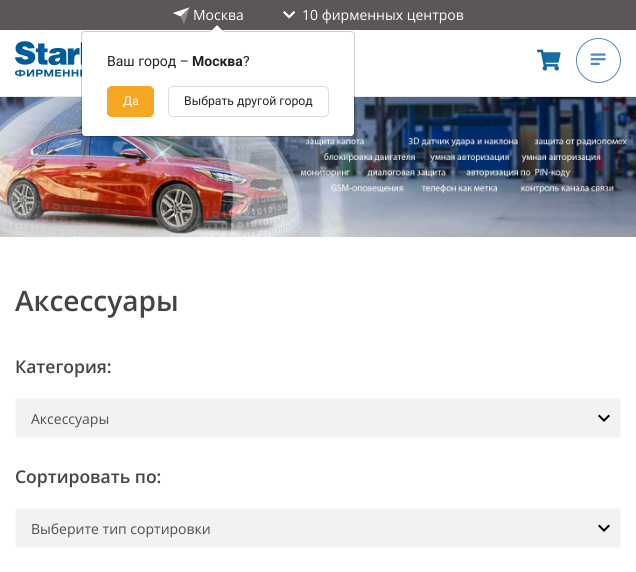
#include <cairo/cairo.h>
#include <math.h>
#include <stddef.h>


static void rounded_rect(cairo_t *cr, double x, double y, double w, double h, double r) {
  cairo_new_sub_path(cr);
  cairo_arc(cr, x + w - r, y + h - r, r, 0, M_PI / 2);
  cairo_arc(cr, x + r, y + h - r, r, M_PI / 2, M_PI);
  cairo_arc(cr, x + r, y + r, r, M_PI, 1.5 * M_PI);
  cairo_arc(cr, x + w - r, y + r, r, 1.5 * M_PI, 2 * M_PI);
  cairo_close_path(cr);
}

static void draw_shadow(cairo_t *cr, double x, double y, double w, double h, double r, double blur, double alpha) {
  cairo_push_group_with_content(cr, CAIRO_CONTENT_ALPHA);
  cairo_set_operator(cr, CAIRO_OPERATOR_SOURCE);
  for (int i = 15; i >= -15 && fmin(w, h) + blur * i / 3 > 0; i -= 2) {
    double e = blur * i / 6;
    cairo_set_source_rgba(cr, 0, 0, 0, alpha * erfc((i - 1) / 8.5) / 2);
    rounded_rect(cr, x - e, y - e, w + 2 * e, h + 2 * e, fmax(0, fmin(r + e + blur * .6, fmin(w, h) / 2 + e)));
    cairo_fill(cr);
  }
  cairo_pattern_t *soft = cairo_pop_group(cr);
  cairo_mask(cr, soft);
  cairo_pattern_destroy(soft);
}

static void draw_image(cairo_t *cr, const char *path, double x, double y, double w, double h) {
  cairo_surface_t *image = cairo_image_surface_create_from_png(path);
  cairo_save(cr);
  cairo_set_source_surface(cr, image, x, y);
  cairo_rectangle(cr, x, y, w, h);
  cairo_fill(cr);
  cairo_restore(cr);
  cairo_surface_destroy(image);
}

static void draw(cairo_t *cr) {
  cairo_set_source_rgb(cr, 1, 1, 1);
  cairo_paint(cr);
  draw_image(cr, "images/6.png", 0, 97, 636, 140);
  cairo_save(cr);
  cairo_rectangle(cr, 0, 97, 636, 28);
  cairo_clip(cr);
  cairo_set_source_rgb(cr, 0, 0, 0);
  draw_shadow(cr, -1, 9, 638, 99, 0, 20, 0.1);
  cairo_restore(cr);
  cairo_set_source_rgb(cr, 234 / 255.0, 234 / 255.0, 234 / 255.0);
  cairo_rectangle(cr, 0, 96, 636, 1);
  cairo_fill(cr);
  cairo_set_source_rgb(cr, 93 / 255.0, 86 / 255.0, 86 / 255.0);
  cairo_rectangle(cr, 0, 0, 636, 30);
  cairo_fill(cr);
  draw_image(cr, "images/1.png", 173, 7, 17, 17);
  draw_image(cr, "images/2.png", 283, 11, 12, 8);
  draw_image(cr, "images/3.png", 15, 41, 67, 36);
  draw_image(cr, "images/4.png", 537, 49, 24, 22);
  cairo_arc(cr, 598.5, 60.5, 22, 0, 2 * M_PI);
  cairo_set_source_rgb(cr, 77 / 255.0, 141 / 255.0, 184 / 255.0);
  cairo_set_line_width(cr, 1);
  cairo_stroke(cr);
  draw_image(cr, "images/5.png", 590, 53, 16, 13);
  cairo_set_source_rgb(cr, 1, 1, 1);
  rounded_rect(cr, 82, 32, 272, 104, 3);
  cairo_fill(cr);
  rounded_rect(cr, 81.5, 31.5, 273, 105, 3.5);
  cairo_set_source_rgba(cr, 0, 0, 0, 0.2);
  cairo_stroke(cr);
  cairo_set_source_rgba(cr, 0, 0, 0, 0.25);
  cairo_new_path(cr);
  cairo_move_to(cr, 224, 31);
  cairo_line_to(cr, 210, 31);
  cairo_line_to(cr, 217, 24);
  cairo_close_path(cr);
  cairo_fill(cr);
  cairo_set_source_rgb(cr, 1, 1, 1);
  cairo_new_path(cr);
  cairo_move_to(cr, 224, 32);
  cairo_line_to(cr, 210, 32);
  cairo_line_to(cr, 217, 25);
  cairo_close_path(cr);
  cairo_fill(cr);
  cairo_set_source_rgb(cr, 245 / 255.0, 166 / 255.0, 35 / 255.0);
  rounded_rect(cr, 107.5, 86.5, 46, 30, 4.5);
  cairo_fill_preserve(cr);
  cairo_stroke(cr);
  rounded_rect(cr, 168.5, 86.5, 160, 30, 4.5);
  cairo_set_source_rgb(cr, 221 / 255.0, 221 / 255.0, 221 / 255.0);
  cairo_stroke(cr);
  cairo_set_source_rgb(cr, 242 / 255.0, 242 / 255.0, 242 / 255.0);
  rounded_rect(cr, 15, 398, 606, 40, 4);
  cairo_fill(cr);
  draw_image(cr, "images/7.png", 598, 414, 12, 8);
  rounded_rect(cr, 15.5, 398.5, 605, 39, 3.5);
  cairo_set_source_rgb(cr, 249 / 255.0, 249 / 255.0, 249 / 255.0);
  cairo_stroke(cr);
  cairo_set_source_rgb(cr, 242 / 255.0, 242 / 255.0, 242 / 255.0);
  rounded_rect(cr, 15, 508, 606, 40, 4);
  cairo_fill(cr);
  draw_image(cr, "images/7.png", 598, 524, 12, 8);
  rounded_rect(cr, 15.5, 508.5, 605, 39, 3.5);
  cairo_set_source_rgb(cr, 249 / 255.0, 249 / 255.0, 249 / 255.0);
  cairo_stroke(cr);
  cairo_select_font_face(cr, "Open Sans", CAIRO_FONT_SLANT_NORMAL, CAIRO_FONT_WEIGHT_NORMAL);
  cairo_set_font_size(cr, 14);
  cairo_set_source_rgb(cr, 1, 1, 1);
  cairo_move_to(cr, 193, 20);
  cairo_show_text(cr, "Москва");
  cairo_move_to(cr, 302, 20);
  cairo_show_text(cr, "10 фирменных центров");
  cairo_select_font_face(cr, "Roboto", CAIRO_FONT_SLANT_NORMAL, CAIRO_FONT_WEIGHT_NORMAL);
  cairo_set_source_rgb(cr, 33 / 255.0, 37 / 255.0, 41 / 255.0);
  cairo_move_to(cr, 107, 66);
  cairo_show_text(cr, "Ваш город –");
  cairo_select_font_face(cr, "Roboto", CAIRO_FONT_SLANT_NORMAL, CAIRO_FONT_WEIGHT_BOLD);
  cairo_move_to(cr, 192, 66);
  cairo_show_text(cr, "Москва");
  cairo_select_font_face(cr, "Roboto", CAIRO_FONT_SLANT_NORMAL, CAIRO_FONT_WEIGHT_NORMAL);
  cairo_move_to(cr, 243, 66);
  cairo_show_text(cr, "?");
  cairo_set_font_size(cr, 12.25);
  cairo_set_source_rgb(cr, 1, 1, 1);
  cairo_move_to(cr, 123, 105);
  cairo_show_text(cr, "Да");
  cairo_set_source_rgb(cr, 33 / 255.0, 37 / 255.0, 41 / 255.0);
  cairo_move_to(cr, 184, 105);
  cairo_show_text(cr, "Выбрать другой город");
  cairo_select_font_face(cr, "Open Sans SemiBold", CAIRO_FONT_SLANT_NORMAL, CAIRO_FONT_WEIGHT_NORMAL);
  cairo_set_font_size(cr, 28);
  cairo_set_source_rgb(cr, 68 / 255.0, 68 / 255.0, 68 / 255.0);
  cairo_move_to(cr, 15, 311);
  cairo_show_text(cr, "Аксессуары");
  cairo_set_font_size(cr, 17.5);
  cairo_move_to(cr, 15, 373);
  cairo_show_text(cr, "Категория:");
  cairo_select_font_face(cr, "Open Sans", CAIRO_FONT_SLANT_NORMAL, CAIRO_FONT_WEIGHT_NORMAL);
  cairo_set_font_size(cr, 14);
  cairo_set_source_rgb(cr, 73 / 255.0, 80 / 255.0, 87 / 255.0);
  cairo_move_to(cr, 31, 424);
  cairo_show_text(cr, "Аксессуары");
  cairo_select_font_face(cr, "Open Sans SemiBold", CAIRO_FONT_SLANT_NORMAL, CAIRO_FONT_WEIGHT_NORMAL);
  cairo_set_font_size(cr, 17.5);
  cairo_set_source_rgb(cr, 68 / 255.0, 68 / 255.0, 68 / 255.0);
  cairo_move_to(cr, 15, 483);
  cairo_show_text(cr, "Сортировать по:");
  cairo_select_font_face(cr, "Open Sans", CAIRO_FONT_SLANT_NORMAL, CAIRO_FONT_WEIGHT_NORMAL);
  cairo_set_font_size(cr, 14);
  cairo_set_source_rgb(cr, 73 / 255.0, 80 / 255.0, 87 / 255.0);
  cairo_move_to(cr, 31, 534);
  cairo_show_text(cr, "Выберите тип сортировки");
}

int main(void) {
  cairo_surface_t *surface = cairo_image_surface_create(CAIRO_FORMAT_RGB24, 636, 572);
  cairo_t *cr = cairo_create(surface);
  cairo_font_options_t *options = cairo_font_options_create();
  cairo_font_options_set_hint_metrics(options, CAIRO_HINT_METRICS_OFF);
  cairo_font_options_set_hint_style(options, CAIRO_HINT_STYLE_NONE);
  cairo_set_font_options(cr, options);
  cairo_set_miter_limit(cr, 4);
  draw(cr);
  cairo_surface_write_to_png(surface, "out.png");
  cairo_font_options_destroy(options);
  cairo_destroy(cr);
  cairo_surface_destroy(surface);
  return 0;
}
